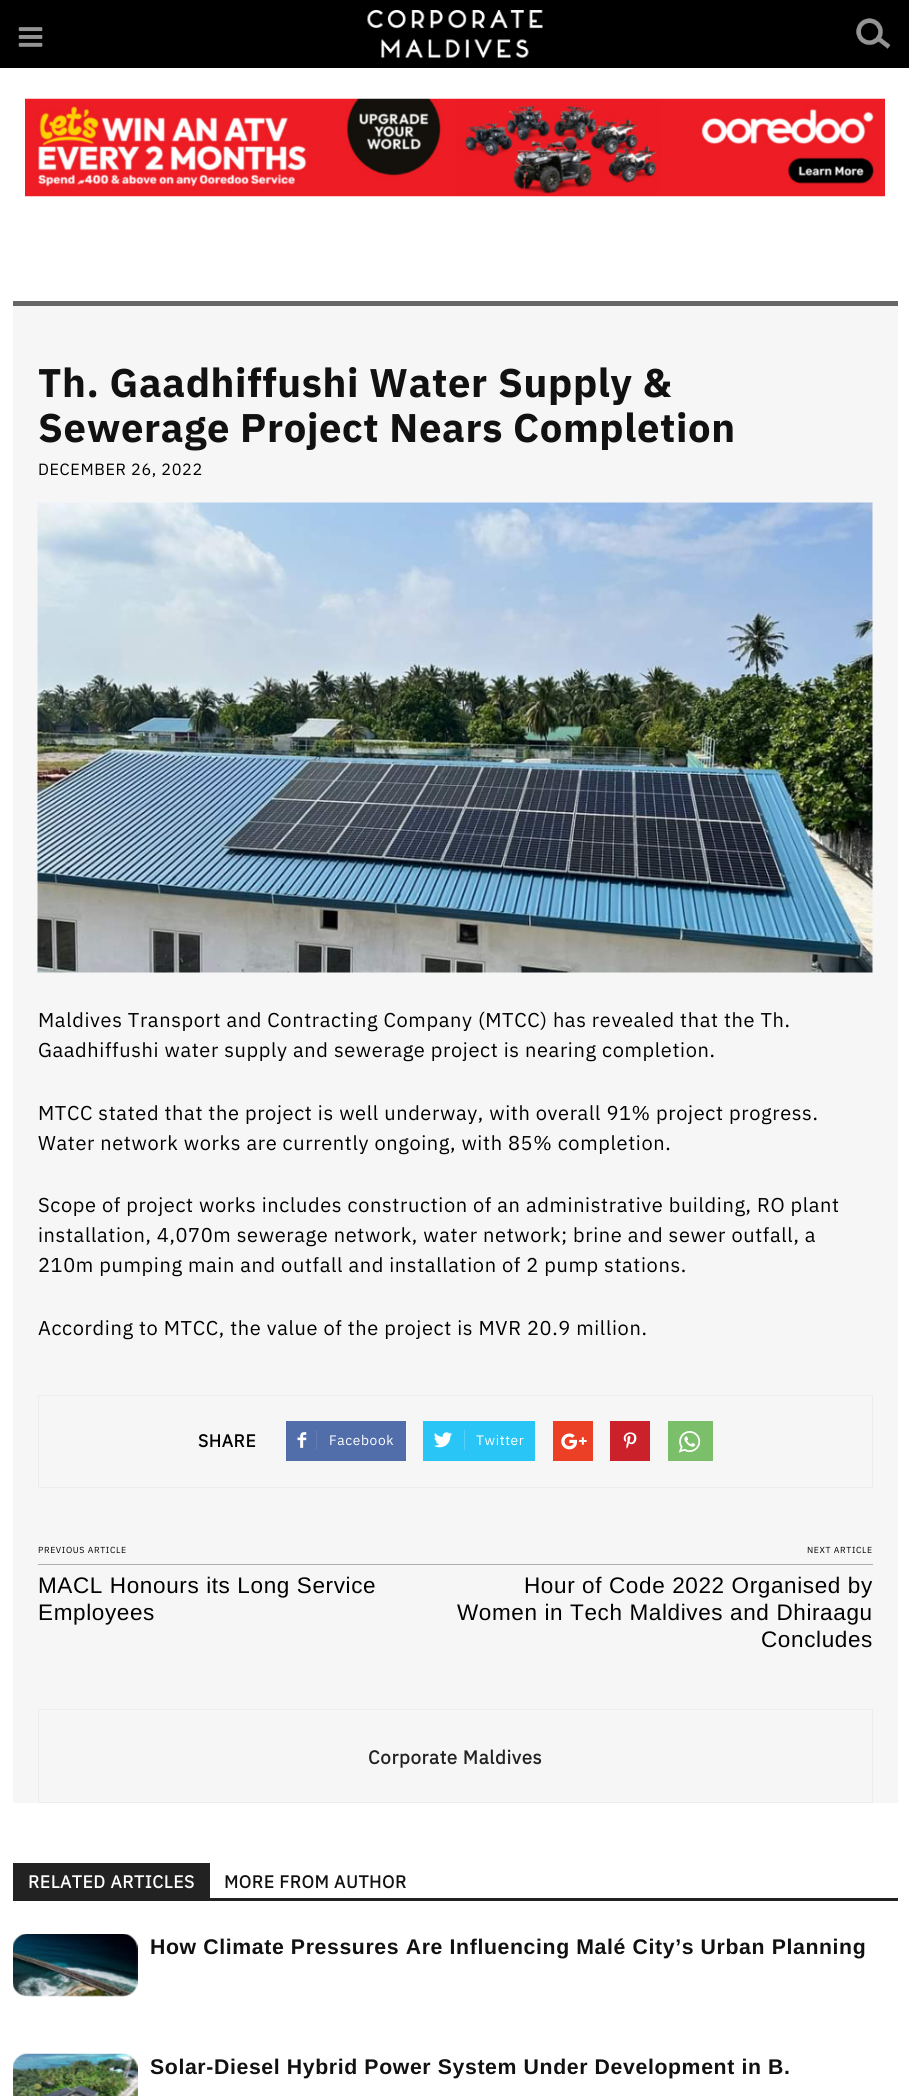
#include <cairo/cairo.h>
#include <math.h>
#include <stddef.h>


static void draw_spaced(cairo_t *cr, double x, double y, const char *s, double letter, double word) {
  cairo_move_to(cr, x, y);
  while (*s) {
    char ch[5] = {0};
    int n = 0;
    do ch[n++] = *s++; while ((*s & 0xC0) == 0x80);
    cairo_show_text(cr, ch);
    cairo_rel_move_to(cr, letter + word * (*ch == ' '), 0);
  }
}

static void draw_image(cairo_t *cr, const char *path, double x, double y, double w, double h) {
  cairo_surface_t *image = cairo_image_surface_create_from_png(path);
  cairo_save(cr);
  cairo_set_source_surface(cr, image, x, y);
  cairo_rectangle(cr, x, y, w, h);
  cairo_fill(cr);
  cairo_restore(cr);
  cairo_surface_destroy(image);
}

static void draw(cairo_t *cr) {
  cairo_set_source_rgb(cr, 1, 1, 1);
  cairo_paint(cr);
  cairo_set_source_rgb(cr, 0, 0, 0);
  cairo_rectangle(cr, 0, 0, 909, 68);
  cairo_fill(cr);
  draw_image(cr, "images/1.png", 18, 27, 25, 20);
  draw_image(cr, "images/2.png", 367, 10, 176, 48);
  draw_image(cr, "images/3.png", 856, 18, 35, 31);
  draw_image(cr, "images/4.png", 25, 98, 860, 99);
  cairo_set_source_rgb(cr, 246 / 255.0, 246 / 255.0, 246 / 255.0);
  cairo_rectangle(cr, 13, 306, 885, 1497);
  cairo_fill(cr);
  cairo_set_source_rgb(cr, 102 / 255.0, 102 / 255.0, 102 / 255.0);
  cairo_rectangle(cr, 13, 301, 885, 5);
  cairo_fill(cr);
  draw_image(cr, "images/5.png", 37, 502, 836, 471);
  cairo_rectangle(cr, 38.5, 1395.5, 834, 92);
  cairo_set_source_rgb(cr, 237 / 255.0, 237 / 255.0, 237 / 255.0);
  cairo_set_line_width(cr, 1);
  cairo_stroke(cr);
  cairo_set_source_rgb(cr, 81 / 255.0, 110 / 255.0, 171 / 255.0);
  cairo_rectangle(cr, 286, 1421, 120, 40);
  cairo_fill(cr);
  draw_image(cr, "images/6.png", 297, 1432, 10, 16);
  cairo_set_source_rgb(cr, 98 / 255.0, 125 / 255.0, 179 / 255.0);
  cairo_rectangle(cr, 316, 1430, 1, 20);
  cairo_fill(cr);
  cairo_set_source_rgb(cr, 41 / 255.0, 197 / 255.0, 246 / 255.0);
  cairo_rectangle(cr, 423, 1421, 112, 40);
  cairo_fill(cr);
  draw_image(cr, "images/7.png", 434, 1432, 18, 16);
  cairo_set_source_rgb(cr, 84 / 255.0, 209 / 255.0, 248 / 255.0);
  cairo_rectangle(cr, 464, 1430, 1, 20);
  cairo_fill(cr);
  cairo_set_source_rgb(cr, 235 / 255.0, 64 / 255.0, 38 / 255.0);
  cairo_rectangle(cr, 553, 1421, 40, 40);
  cairo_fill(cr);
  draw_image(cr, "images/8.png", 561, 1433, 26, 17);
  cairo_set_source_rgb(cr, 202 / 255.0, 33 / 255.0, 42 / 255.0);
  cairo_rectangle(cr, 610, 1421, 40, 40);
  cairo_fill(cr);
  draw_image(cr, "images/9.png", 623, 1432, 14, 17);
  cairo_set_source_rgb(cr, 123 / 255.0, 191 / 255.0, 106 / 255.0);
  cairo_rectangle(cr, 668, 1421, 45, 40);
  cairo_fill(cr);
  draw_image(cr, "images/10.png", 678, 1431, 23, 22);
  cairo_set_source_rgb(cr, 174 / 255.0, 174 / 255.0, 174 / 255.0);
  cairo_rectangle(cr, 38, 1564, 835, 1);
  cairo_fill(cr);
  cairo_rectangle(cr, 38.5, 1709.5, 834, 93);
  cairo_set_source_rgb(cr, 237 / 255.0, 237 / 255.0, 237 / 255.0);
  cairo_stroke(cr);
  cairo_set_source_rgb(cr, 34 / 255.0, 34 / 255.0, 34 / 255.0);
  cairo_rectangle(cr, 13, 1898, 885, 3);
  cairo_fill(cr);
  cairo_rectangle(cr, 13, 1863, 197, 35);
  cairo_fill(cr);
  draw_image(cr, "images/11.png", 13, 1934, 125, 63);
  draw_image(cr, "images/12.png", 13, 2053, 125, 43);
  cairo_select_font_face(cr, "IBM Plex Sans", CAIRO_FONT_SLANT_NORMAL, CAIRO_FONT_WEIGHT_BOLD);
  cairo_set_font_size(cr, 40);
  cairo_set_source_rgb(cr, 17 / 255.0, 17 / 255.0, 17 / 255.0);
  draw_spaced(cr, 38, 397, "Th. Gaadhiffushi Water Supply &", 0.62, 0);
  draw_spaced(cr, 38, 442, "Sewerage Project Nears Completion", 0.62, 0);
  cairo_select_font_face(cr, "IBM Plex Sans", CAIRO_FONT_SLANT_NORMAL, CAIRO_FONT_WEIGHT_NORMAL);
  cairo_set_font_size(cr, 16.25);
  cairo_set_source_rgb(cr, 0, 0, 0);
  draw_spaced(cr, 38, 475, "DECEMBER 26, 2022", 0.62, 0);
  cairo_set_font_size(cr, 20);
  draw_spaced(cr, 38, 1027, "Maldives Transport and Contracting Company (MTCC) has revealed that the Th.", 0.62, 0);
  draw_spaced(cr, 38, 1057, "Gaadhiffushi water supply and sewerage project is nearing completion.", 0.62, 0);
  draw_spaced(cr, 38, 1120, "MTCC stated that the project is well underway, with overall 91% project progress.", 0.62, 0);
  draw_spaced(cr, 38, 1150, "Water network works are currently ongoing, with 85% completion.", 0.62, 0);
  draw_spaced(cr, 38, 1212, "Scope of project works includes construction of an administrative building, RO plant", 0.62, 0);
  draw_spaced(cr, 38, 1242, "installation, 4,070m sewerage network, water network; brine and sewer outfall, a", 0.62, 0);
  draw_spaced(cr, 38, 1272, "210m pumping main and outfall and installation of 2 pump stations.", 0.62, 0);
  draw_spaced(cr, 38, 1335, "According to MTCC, the value of the project is MVR 20.9 million.", 0.62, 0);
  cairo_select_font_face(cr, "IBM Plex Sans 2", CAIRO_FONT_SLANT_NORMAL, CAIRO_FONT_WEIGHT_BOLD);
  cairo_set_font_size(cr, 17.5);
  draw_spaced(cr, 198, 1447, "SHARE", 0.62, 0);
  cairo_select_font_face(cr, "IBM Plex Sans", CAIRO_FONT_SLANT_NORMAL, CAIRO_FONT_WEIGHT_NORMAL);
  cairo_set_font_size(cr, 13.75);
  cairo_set_source_rgb(cr, 1, 1, 1);
  draw_spaced(cr, 329, 1445, "Facebook", 0.62, 0);
  draw_spaced(cr, 476, 1445, "Twitter", 0.62, 0);
  cairo_set_font_size(cr, 8.75);
  cairo_set_source_rgb(cr, 0, 0, 0);
  draw_spaced(cr, 38, 1553, "PREVIOUS ARTICLE", 0.62, 0);
  cairo_select_font_face(cr, "Liberation Sans", CAIRO_FONT_SLANT_NORMAL, CAIRO_FONT_WEIGHT_NORMAL);
  cairo_set_font_size(cr, 22.5);
  draw_spaced(cr, 38, 1593, "MACL Honours its Long Service", 0.62, 0);
  draw_spaced(cr, 38, 1620, "Employees", 0.62, 0);
  cairo_select_font_face(cr, "IBM Plex Sans", CAIRO_FONT_SLANT_NORMAL, CAIRO_FONT_WEIGHT_NORMAL);
  cairo_set_font_size(cr, 8.75);
  draw_spaced(cr, 807, 1553, "NEXT ARTICLE", 0.62, 0);
  cairo_select_font_face(cr, "Liberation Sans", CAIRO_FONT_SLANT_NORMAL, CAIRO_FONT_WEIGHT_NORMAL);
  cairo_set_font_size(cr, 22.5);
  draw_spaced(cr, 524, 1593, "Hour of Code 2022 Organised by", 0.62, 0);
  draw_spaced(cr, 457, 1620, "Women in Tech Maldives and Dhiraagu", 0.62, 0);
  draw_spaced(cr, 761, 1647, "Concludes", 0.62, 0);
  cairo_select_font_face(cr, "IBM Plex Sans 2", CAIRO_FONT_SLANT_NORMAL, CAIRO_FONT_WEIGHT_BOLD);
  cairo_set_font_size(cr, 18.75);
  cairo_set_source_rgb(cr, 34 / 255.0, 34 / 255.0, 34 / 255.0);
  draw_spaced(cr, 368, 1764, "Corporate Maldives", 0.62, 0);
  cairo_set_font_size(cr, 17.5);
  cairo_set_source_rgb(cr, 1, 1, 1);
  draw_spaced(cr, 28, 1888, "RELATED ARTICLES", 0.62, 0);
  cairo_set_source_rgb(cr, 17 / 255.0, 17 / 255.0, 17 / 255.0);
  draw_spaced(cr, 224, 1888, "MORE FROM AUTHOR", 0.62, 0);
  cairo_select_font_face(cr, "Liberation Sans", CAIRO_FONT_SLANT_NORMAL, CAIRO_FONT_WEIGHT_BOLD);
  cairo_set_font_size(cr, 21.25);
  draw_spaced(cr, 150, 1954, "How Climate Pressures Are Influencing Malé City’s Urban Planning", 0.62, 0);
  draw_spaced(cr, 150, 2074, "Solar-Diesel Hybrid Power System Under Development in B.", 0.62, 0);
}

int main(void) {
  cairo_surface_t *surface = cairo_image_surface_create(CAIRO_FORMAT_RGB24, 909, 2096);
  cairo_t *cr = cairo_create(surface);
  cairo_font_options_t *options = cairo_font_options_create();
  cairo_font_options_set_hint_metrics(options, CAIRO_HINT_METRICS_OFF);
  cairo_font_options_set_hint_style(options, CAIRO_HINT_STYLE_NONE);
  cairo_set_font_options(cr, options);
  cairo_set_miter_limit(cr, 4);
  draw(cr);
  cairo_surface_write_to_png(surface, "out.png");
  cairo_font_options_destroy(options);
  cairo_destroy(cr);
  cairo_surface_destroy(surface);
  return 0;
}
